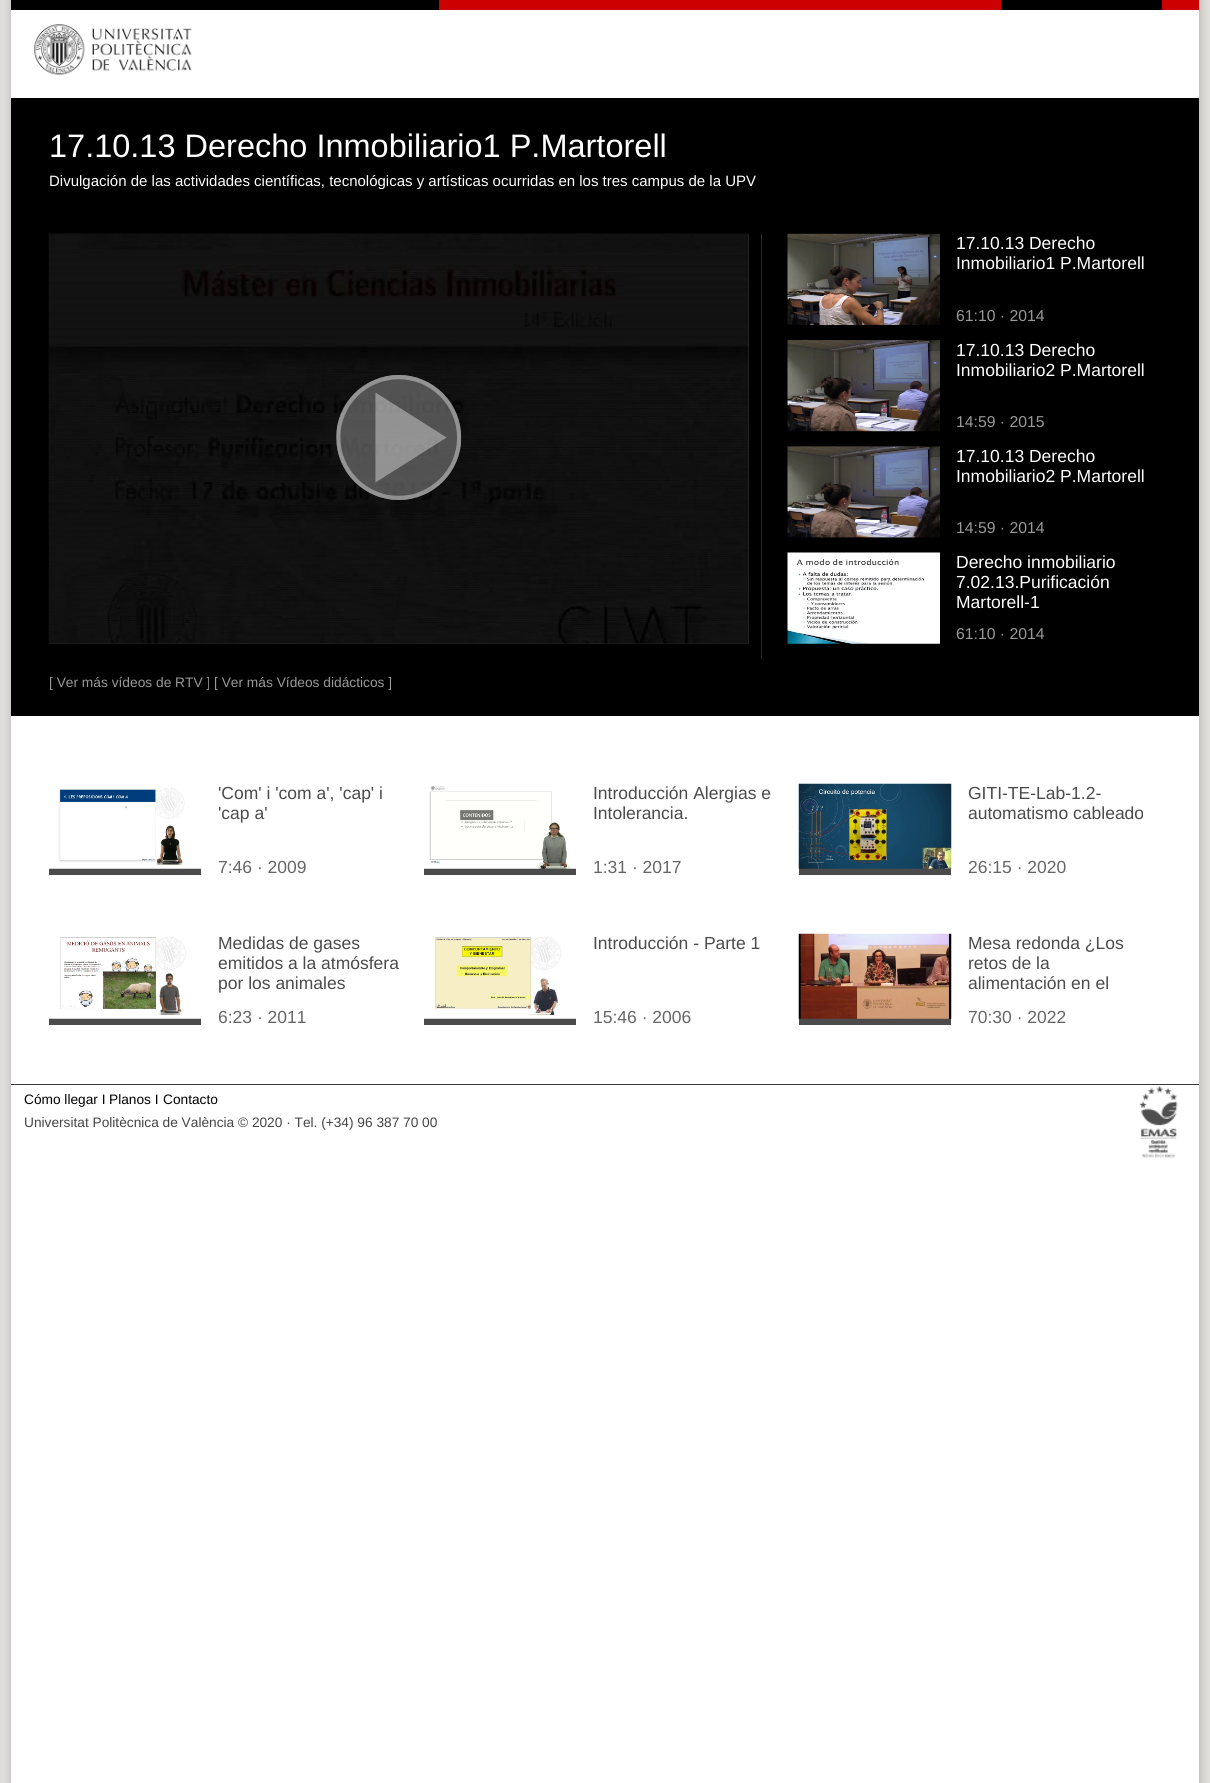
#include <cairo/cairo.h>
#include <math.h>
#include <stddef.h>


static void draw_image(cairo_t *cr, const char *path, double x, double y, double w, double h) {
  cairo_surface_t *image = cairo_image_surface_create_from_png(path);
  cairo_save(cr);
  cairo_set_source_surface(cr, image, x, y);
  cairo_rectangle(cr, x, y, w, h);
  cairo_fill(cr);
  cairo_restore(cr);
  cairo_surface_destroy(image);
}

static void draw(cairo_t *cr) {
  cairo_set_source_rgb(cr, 1, 1, 1);
  cairo_paint(cr);
  draw_image(cr, "images/1.png", 0, 0, 1210, 1783);
  cairo_set_source_rgb(cr, 1, 1, 1);
  cairo_rectangle(cr, 11, 10, 1188, 1773);
  cairo_fill(cr);
  cairo_set_source_rgb(cr, 204 / 255.0, 0, 0);
  cairo_rectangle(cr, 439, 0, 760, 10);
  cairo_fill(cr);
  cairo_set_source_rgb(cr, 0, 0, 0);
  cairo_rectangle(cr, 11, 0, 428, 10);
  cairo_fill(cr);
  cairo_rectangle(cr, 1001, 0, 161, 10);
  cairo_fill(cr);
  draw_image(cr, "images/2.png", 34, 24, 158, 51);
  cairo_rectangle(cr, 11, 98, 1188, 618);
  cairo_fill(cr);
  draw_image(cr, "images/3.png", 48, 233, 701, 411);
  cairo_set_source_rgb(cr, 42 / 255.0, 42 / 255.0, 42 / 255.0);
  cairo_rectangle(cr, 761, 234, 1, 425);
  cairo_fill(cr);
  draw_image(cr, "images/4.png", 787, 233, 153, 92);
  draw_image(cr, "images/5.png", 787, 340, 153, 92);
  draw_image(cr, "images/6.png", 787, 446, 153, 92);
  draw_image(cr, "images/7.png", 787, 552, 153, 92);
  cairo_set_source_rgb(cr, 75 / 255.0, 75 / 255.0, 75 / 255.0);
  cairo_rectangle(cr, 49, 868, 152, 7);
  cairo_fill(cr);
  draw_image(cr, "images/8.png", 49, 784, 152, 85);
  cairo_rectangle(cr, 424, 868, 152, 7);
  cairo_fill(cr);
  draw_image(cr, "images/9.png", 424, 784, 152, 85);
  cairo_rectangle(cr, 799, 868, 152, 7);
  cairo_fill(cr);
  draw_image(cr, "images/10.png", 798, 783, 154, 86);
  cairo_rectangle(cr, 49, 1018, 152, 7);
  cairo_fill(cr);
  draw_image(cr, "images/11.png", 49, 934, 152, 85);
  cairo_rectangle(cr, 424, 1018, 152, 7);
  cairo_fill(cr);
  draw_image(cr, "images/12.png", 424, 934, 152, 85);
  cairo_rectangle(cr, 799, 1018, 152, 7);
  cairo_fill(cr);
  draw_image(cr, "images/13.png", 798, 933, 154, 86);
  cairo_set_source_rgb(cr, 55 / 255.0, 55 / 255.0, 55 / 255.0);
  cairo_rectangle(cr, 11, 1084, 1188, 1);
  cairo_fill(cr);
  draw_image(cr, "images/14.png", 1139, 1086, 39, 72);
  cairo_select_font_face(cr, "Liberation Sans", CAIRO_FONT_SLANT_NORMAL, CAIRO_FONT_WEIGHT_NORMAL);
  cairo_set_font_size(cr, 32.5);
  cairo_set_source_rgb(cr, 1, 1, 1);
  cairo_move_to(cr, 49, 157);
  cairo_show_text(cr, "17.10.13 Derecho Inmobiliario1 P.Martorell");
  cairo_set_font_size(cr, 15);
  cairo_move_to(cr, 49, 186);
  cairo_show_text(cr, "Divulgación de las actividades científicas, tecnológicas y artísticas ocurridas en los tres campus de la UPV");
  cairo_set_font_size(cr, 13.75);
  cairo_set_source_rgb(cr, 153 / 255.0, 153 / 255.0, 153 / 255.0);
  cairo_move_to(cr, 49, 687);
  cairo_show_text(cr, "[ Ver más vídeos de RTV ]");
  cairo_move_to(cr, 214, 687);
  cairo_show_text(cr, "[ Ver más Vídeos didácticos ]");
  cairo_set_font_size(cr, 17.5);
  cairo_set_source_rgb(cr, 1, 1, 1);
  cairo_move_to(cr, 956, 249);
  cairo_show_text(cr, "17.10.13 Derecho");
  cairo_move_to(cr, 956, 269);
  cairo_show_text(cr, "Inmobiliario1 P.Martorell");
  cairo_set_font_size(cr, 15.75);
  cairo_set_source_rgb(cr, 153 / 255.0, 153 / 255.0, 153 / 255.0);
  cairo_move_to(cr, 956, 321);
  cairo_show_text(cr, "61:10 · 2014");
  cairo_set_font_size(cr, 17.5);
  cairo_set_source_rgb(cr, 1, 1, 1);
  cairo_move_to(cr, 956, 356);
  cairo_show_text(cr, "17.10.13 Derecho");
  cairo_move_to(cr, 956, 376);
  cairo_show_text(cr, "Inmobiliario2 P.Martorell");
  cairo_set_font_size(cr, 15.75);
  cairo_set_source_rgb(cr, 153 / 255.0, 153 / 255.0, 153 / 255.0);
  cairo_move_to(cr, 956, 427);
  cairo_show_text(cr, "14:59 · 2015");
  cairo_set_font_size(cr, 17.5);
  cairo_set_source_rgb(cr, 1, 1, 1);
  cairo_move_to(cr, 956, 462);
  cairo_show_text(cr, "17.10.13 Derecho");
  cairo_move_to(cr, 956, 482);
  cairo_show_text(cr, "Inmobiliario2 P.Martorell");
  cairo_set_font_size(cr, 15.75);
  cairo_set_source_rgb(cr, 153 / 255.0, 153 / 255.0, 153 / 255.0);
  cairo_move_to(cr, 956, 533);
  cairo_show_text(cr, "14:59 · 2014");
  cairo_set_font_size(cr, 17.5);
  cairo_set_source_rgb(cr, 1, 1, 1);
  cairo_move_to(cr, 956, 568);
  cairo_show_text(cr, "Derecho inmobiliario");
  cairo_move_to(cr, 956, 588);
  cairo_show_text(cr, "7.02.13.Purificación");
  cairo_move_to(cr, 956, 608);
  cairo_show_text(cr, "Martorell-1");
  cairo_set_font_size(cr, 15.75);
  cairo_set_source_rgb(cr, 153 / 255.0, 153 / 255.0, 153 / 255.0);
  cairo_move_to(cr, 956, 639);
  cairo_show_text(cr, "61:10 · 2014");
  cairo_set_font_size(cr, 17.5);
  cairo_set_source_rgb(cr, 75 / 255.0, 75 / 255.0, 75 / 255.0);
  cairo_move_to(cr, 218, 799);
  cairo_show_text(cr, "'Com' i 'com a', 'cap' i");
  cairo_move_to(cr, 218, 819);
  cairo_show_text(cr, "'cap a'");
  cairo_set_source_rgb(cr, 102 / 255.0, 102 / 255.0, 102 / 255.0);
  cairo_move_to(cr, 218, 873);
  cairo_show_text(cr, "7:46 · 2009");
  cairo_set_source_rgb(cr, 75 / 255.0, 75 / 255.0, 75 / 255.0);
  cairo_move_to(cr, 593, 799);
  cairo_show_text(cr, "Introducción Alergias e");
  cairo_move_to(cr, 593, 819);
  cairo_show_text(cr, "Intolerancia.");
  cairo_set_source_rgb(cr, 102 / 255.0, 102 / 255.0, 102 / 255.0);
  cairo_move_to(cr, 593, 873);
  cairo_show_text(cr, "1:31 · 2017");
  cairo_set_source_rgb(cr, 75 / 255.0, 75 / 255.0, 75 / 255.0);
  cairo_move_to(cr, 968, 799);
  cairo_show_text(cr, "GITI-TE-Lab-1.2-");
  cairo_move_to(cr, 968, 819);
  cairo_show_text(cr, "automatismo cableado");
  cairo_set_source_rgb(cr, 102 / 255.0, 102 / 255.0, 102 / 255.0);
  cairo_move_to(cr, 968, 873);
  cairo_show_text(cr, "26:15 · 2020");
  cairo_set_source_rgb(cr, 75 / 255.0, 75 / 255.0, 75 / 255.0);
  cairo_move_to(cr, 218, 949);
  cairo_show_text(cr, "Medidas de gases");
  cairo_move_to(cr, 218, 969);
  cairo_show_text(cr, "emitidos a la atmósfera");
  cairo_move_to(cr, 218, 989);
  cairo_show_text(cr, "por los animales");
  cairo_set_source_rgb(cr, 102 / 255.0, 102 / 255.0, 102 / 255.0);
  cairo_move_to(cr, 218, 1023);
  cairo_show_text(cr, "6:23 · 2011");
  cairo_set_source_rgb(cr, 75 / 255.0, 75 / 255.0, 75 / 255.0);
  cairo_move_to(cr, 593, 949);
  cairo_show_text(cr, "Introducción - Parte 1");
  cairo_set_source_rgb(cr, 102 / 255.0, 102 / 255.0, 102 / 255.0);
  cairo_move_to(cr, 593, 1023);
  cairo_show_text(cr, "15:46 · 2006");
  cairo_set_source_rgb(cr, 75 / 255.0, 75 / 255.0, 75 / 255.0);
  cairo_move_to(cr, 968, 949);
  cairo_show_text(cr, "Mesa redonda ¿Los");
  cairo_move_to(cr, 968, 969);
  cairo_show_text(cr, "retos de la");
  cairo_move_to(cr, 968, 989);
  cairo_show_text(cr, "alimentación en el");
  cairo_set_source_rgb(cr, 102 / 255.0, 102 / 255.0, 102 / 255.0);
  cairo_move_to(cr, 968, 1023);
  cairo_show_text(cr, "70:30 · 2022");
  cairo_set_font_size(cr, 13.7);
  cairo_set_source_rgb(cr, 0, 0, 0);
  cairo_move_to(cr, 24, 1104);
  cairo_show_text(cr, "Cómo llegar I");
  cairo_move_to(cr, 109, 1104);
  cairo_show_text(cr, "Planos I");
  cairo_move_to(cr, 163, 1104);
  cairo_show_text(cr, "Contacto");
  cairo_set_source_rgb(cr, 68 / 255.0, 68 / 255.0, 68 / 255.0);
  cairo_move_to(cr, 24, 1127);
  cairo_show_text(cr, "Universitat Politècnica de València © 2020 · Tel. (+34) 96 387 70 00");
}

int main(void) {
  cairo_surface_t *surface = cairo_image_surface_create(CAIRO_FORMAT_RGB24, 1210, 1783);
  cairo_t *cr = cairo_create(surface);
  cairo_font_options_t *options = cairo_font_options_create();
  cairo_font_options_set_hint_metrics(options, CAIRO_HINT_METRICS_OFF);
  cairo_font_options_set_hint_style(options, CAIRO_HINT_STYLE_NONE);
  cairo_set_font_options(cr, options);
  cairo_set_miter_limit(cr, 4);
  draw(cr);
  cairo_surface_write_to_png(surface, "out.png");
  cairo_font_options_destroy(options);
  cairo_destroy(cr);
  cairo_surface_destroy(surface);
  return 0;
}
